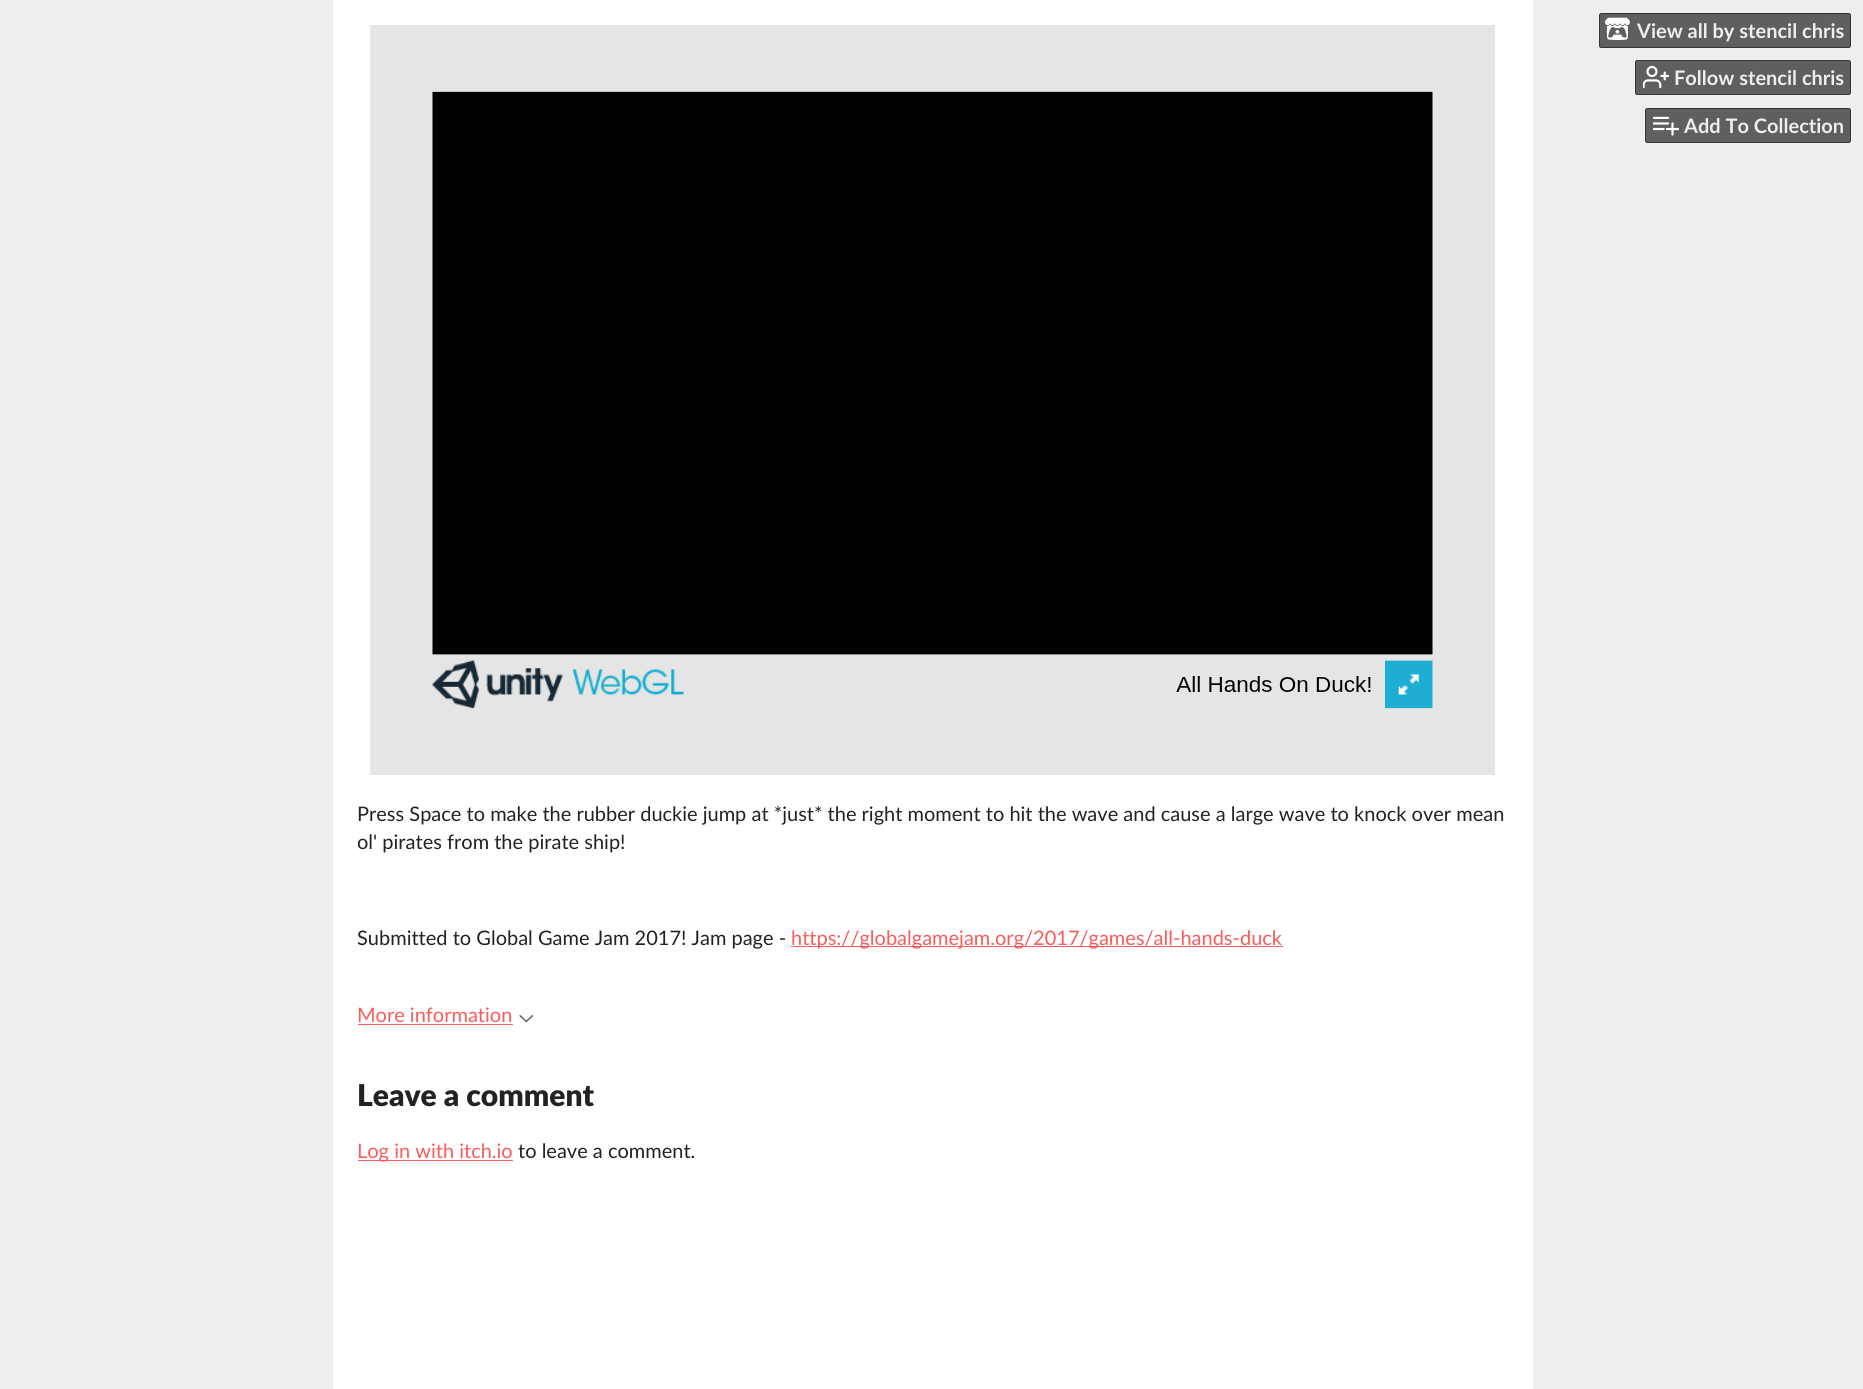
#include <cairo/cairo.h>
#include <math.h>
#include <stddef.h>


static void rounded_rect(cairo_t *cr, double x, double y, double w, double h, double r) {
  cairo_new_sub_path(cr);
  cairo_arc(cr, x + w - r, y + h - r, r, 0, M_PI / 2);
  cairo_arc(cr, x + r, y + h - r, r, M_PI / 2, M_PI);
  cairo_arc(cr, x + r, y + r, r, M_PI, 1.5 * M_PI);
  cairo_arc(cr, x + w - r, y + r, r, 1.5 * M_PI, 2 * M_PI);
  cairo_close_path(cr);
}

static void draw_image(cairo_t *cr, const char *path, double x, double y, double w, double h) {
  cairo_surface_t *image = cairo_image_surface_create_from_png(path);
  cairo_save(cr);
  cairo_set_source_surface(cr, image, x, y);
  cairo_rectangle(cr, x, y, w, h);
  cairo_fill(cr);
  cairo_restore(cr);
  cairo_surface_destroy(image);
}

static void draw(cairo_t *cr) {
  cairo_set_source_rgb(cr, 238 / 255.0, 238 / 255.0, 238 / 255.0);
  cairo_paint(cr);
  rounded_rect(cr, 1598.5, 11.5, 254, 37, 3.5);
  cairo_set_source_rgb(cr, 241 / 255.0, 241 / 255.0, 241 / 255.0);
  cairo_set_line_width(cr, 1);
  cairo_stroke(cr);
  cairo_set_source_rgb(cr, 95 / 255.0, 95 / 255.0, 95 / 255.0);
  rounded_rect(cr, 1599, 13, 252, 35, 2.5);
  cairo_fill(cr);
  rounded_rect(cr, 1599.5, 13.5, 251, 34, 2);
  cairo_set_source_rgba(cr, 10 / 255.0, 10 / 255.0, 10 / 255.0, 0.5);
  cairo_stroke(cr);
  draw_image(cr, "images/1.png", 1605, 17, 25, 23);
  rounded_rect(cr, 1634.5, 59.5, 218, 36, 3.5);
  cairo_set_source_rgb(cr, 241 / 255.0, 241 / 255.0, 241 / 255.0);
  cairo_stroke(cr);
  cairo_set_source_rgb(cr, 95 / 255.0, 95 / 255.0, 95 / 255.0);
  rounded_rect(cr, 1635, 60, 216, 35, 2.5);
  cairo_fill(cr);
  rounded_rect(cr, 1635.5, 60.5, 215, 34, 2);
  cairo_set_source_rgba(cr, 10 / 255.0, 10 / 255.0, 10 / 255.0, 0.5);
  cairo_stroke(cr);
  draw_image(cr, "images/2.png", 1643, 65, 26, 24);
  rounded_rect(cr, 1644.5, 106.5, 208, 37, 3.5);
  cairo_set_source_rgb(cr, 241 / 255.0, 241 / 255.0, 241 / 255.0);
  cairo_stroke(cr);
  cairo_set_source_rgb(cr, 95 / 255.0, 95 / 255.0, 95 / 255.0);
  rounded_rect(cr, 1645, 108, 206, 35, 2.5);
  cairo_fill(cr);
  rounded_rect(cr, 1645.5, 108.5, 205, 34, 2);
  cairo_set_source_rgba(cr, 10 / 255.0, 10 / 255.0, 10 / 255.0, 0.5);
  cairo_stroke(cr);
  draw_image(cr, "images/3.png", 1653, 116, 26, 20);
  cairo_set_source_rgb(cr, 1, 1, 1);
  cairo_rectangle(cr, 333, 0, 1200, 1389);
  cairo_fill(cr);
  cairo_set_source_rgb(cr, 229 / 255.0, 229 / 255.0, 229 / 255.0);
  cairo_rectangle(cr, 370, 25, 1125, 750);
  cairo_fill(cr);
  draw_image(cr, "images/4.png", 432, 91, 1001, 618);
  cairo_set_source_rgb(cr, 250 / 255.0, 92 / 255.0, 92 / 255.0);
  cairo_rectangle(cr, 791, 946, 492, 1);
  cairo_fill(cr);
  cairo_rectangle(cr, 358, 1024, 155, 1);
  cairo_fill(cr);
  draw_image(cr, "images/5.png", 519, 1015, 15, 8);
  cairo_rectangle(cr, 358, 1160, 155, 1);
  cairo_fill(cr);
  cairo_select_font_face(cr, "Lato", CAIRO_FONT_SLANT_NORMAL, CAIRO_FONT_WEIGHT_BOLD);
  cairo_set_font_size(cr, 20);
  cairo_set_source_rgb(cr, 238 / 255.0, 238 / 255.0, 238 / 255.0);
  cairo_move_to(cr, 1637, 38);
  cairo_show_text(cr, "View all by stencil chris");
  cairo_move_to(cr, 1674, 85);
  cairo_show_text(cr, "Follow stencil chris");
  cairo_move_to(cr, 1684, 133);
  cairo_show_text(cr, "Add To Collection");
  cairo_select_font_face(cr, "Lato", CAIRO_FONT_SLANT_NORMAL, CAIRO_FONT_WEIGHT_NORMAL);
  cairo_set_source_rgb(cr, 34 / 255.0, 34 / 255.0, 34 / 255.0);
  cairo_move_to(cr, 357, 821);
  cairo_show_text(cr, "Press Space to make the rubber duckie jump at *just* the right moment to hit the wave and cause a large wave to knock over mean");
  cairo_move_to(cr, 357, 849);
  cairo_show_text(cr, "ol' pirates from the pirate ship!");
  cairo_move_to(cr, 357, 945);
  cairo_show_text(cr, "Submitted to Global Game Jam 2017! Jam page -");
  cairo_set_source_rgb(cr, 250 / 255.0, 92 / 255.0, 92 / 255.0);
  cairo_move_to(cr, 791, 945);
  cairo_show_text(cr, "https://globalgamejam.org/2017/games/all-hands-duck");
  cairo_move_to(cr, 357, 1022);
  cairo_show_text(cr, "More information");
  cairo_select_font_face(cr, "Lato Black", CAIRO_FONT_SLANT_NORMAL, CAIRO_FONT_WEIGHT_NORMAL);
  cairo_set_font_size(cr, 30);
  cairo_set_source_rgb(cr, 34 / 255.0, 34 / 255.0, 34 / 255.0);
  cairo_move_to(cr, 357, 1106);
  cairo_show_text(cr, "Leave a comment");
  cairo_select_font_face(cr, "Lato", CAIRO_FONT_SLANT_NORMAL, CAIRO_FONT_WEIGHT_NORMAL);
  cairo_set_font_size(cr, 20);
  cairo_set_source_rgb(cr, 250 / 255.0, 92 / 255.0, 92 / 255.0);
  cairo_move_to(cr, 357, 1158);
  cairo_show_text(cr, "Log in with itch.io");
  cairo_set_source_rgb(cr, 34 / 255.0, 34 / 255.0, 34 / 255.0);
  cairo_move_to(cr, 518, 1158);
  cairo_show_text(cr, "to leave a comment.");
}

int main(void) {
  cairo_surface_t *surface = cairo_image_surface_create(CAIRO_FORMAT_RGB24, 1863, 1389);
  cairo_t *cr = cairo_create(surface);
  cairo_font_options_t *options = cairo_font_options_create();
  cairo_font_options_set_hint_metrics(options, CAIRO_HINT_METRICS_OFF);
  cairo_font_options_set_hint_style(options, CAIRO_HINT_STYLE_NONE);
  cairo_set_font_options(cr, options);
  cairo_set_miter_limit(cr, 4);
  draw(cr);
  cairo_surface_write_to_png(surface, "out.png");
  cairo_font_options_destroy(options);
  cairo_destroy(cr);
  cairo_surface_destroy(surface);
  return 0;
}
